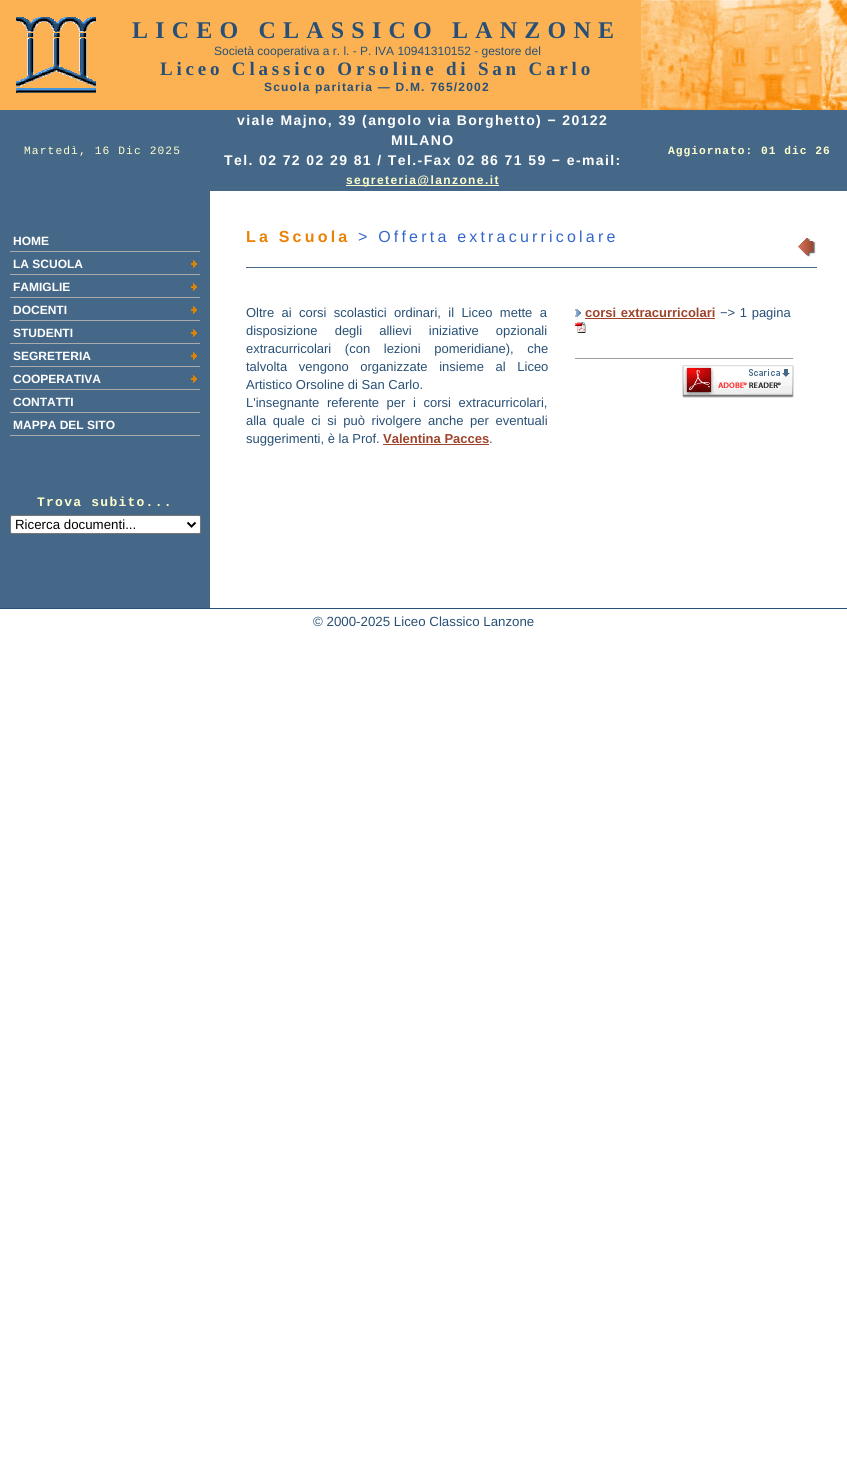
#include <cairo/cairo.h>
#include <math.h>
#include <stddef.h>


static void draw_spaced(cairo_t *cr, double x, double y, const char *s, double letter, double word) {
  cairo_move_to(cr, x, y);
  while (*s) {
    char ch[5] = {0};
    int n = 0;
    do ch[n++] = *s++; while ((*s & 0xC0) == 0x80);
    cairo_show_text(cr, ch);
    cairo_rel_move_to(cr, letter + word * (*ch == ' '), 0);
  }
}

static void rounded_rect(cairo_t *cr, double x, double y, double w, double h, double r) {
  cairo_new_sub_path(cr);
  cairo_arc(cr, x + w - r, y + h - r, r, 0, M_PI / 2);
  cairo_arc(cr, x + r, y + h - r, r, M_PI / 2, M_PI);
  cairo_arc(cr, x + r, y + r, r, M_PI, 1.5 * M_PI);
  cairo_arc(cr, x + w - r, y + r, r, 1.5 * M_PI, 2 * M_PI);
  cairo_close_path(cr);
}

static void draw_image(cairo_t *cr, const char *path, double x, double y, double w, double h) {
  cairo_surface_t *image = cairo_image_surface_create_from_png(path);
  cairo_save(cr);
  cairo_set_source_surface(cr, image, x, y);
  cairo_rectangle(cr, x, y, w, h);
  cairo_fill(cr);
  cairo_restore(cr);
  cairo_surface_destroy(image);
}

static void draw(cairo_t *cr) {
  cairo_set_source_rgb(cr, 1, 1, 1);
  cairo_paint(cr);
  cairo_set_source_rgb(cr, 252 / 255.0, 178 / 255.0, 83 / 255.0);
  cairo_rectangle(cr, 0, 0, 641, 110);
  cairo_fill(cr);
  draw_image(cr, "images/1.png", 16, 17, 80, 76);
  draw_image(cr, "images/2.png", 641, 0, 206, 110);
  cairo_set_source_rgb(cr, 70 / 255.0, 104 / 255.0, 136 / 255.0);
  cairo_rectangle(cr, 0, 110, 847, 81);
  cairo_fill(cr);
  cairo_set_source_rgb(cr, 1, 1, 204 / 255.0);
  cairo_rectangle(cr, 346, 185, 153, 1);
  cairo_fill(cr);
  cairo_set_source_rgb(cr, 70 / 255.0, 104 / 255.0, 136 / 255.0);
  cairo_rectangle(cr, 0, 191, 210, 417);
  cairo_fill(cr);
  cairo_set_source_rgb(cr, 170 / 255.0, 170 / 255.0, 170 / 255.0);
  cairo_rectangle(cr, 10, 251, 190, 1);
  cairo_fill(cr);
  cairo_rectangle(cr, 10, 274, 190, 1);
  cairo_fill(cr);
  draw_image(cr, "images/3.png", 191, 260, 6, 8);
  cairo_rectangle(cr, 10, 297, 190, 1);
  cairo_fill(cr);
  draw_image(cr, "images/3.png", 191, 283, 6, 8);
  cairo_rectangle(cr, 10, 320, 190, 1);
  cairo_fill(cr);
  draw_image(cr, "images/3.png", 191, 306, 6, 8);
  cairo_rectangle(cr, 10, 343, 190, 1);
  cairo_fill(cr);
  draw_image(cr, "images/3.png", 191, 329, 6, 8);
  cairo_rectangle(cr, 10, 366, 190, 1);
  cairo_fill(cr);
  draw_image(cr, "images/3.png", 191, 352, 6, 8);
  cairo_rectangle(cr, 10, 389, 190, 1);
  cairo_fill(cr);
  draw_image(cr, "images/3.png", 191, 375, 6, 8);
  cairo_rectangle(cr, 10, 412, 190, 1);
  cairo_fill(cr);
  cairo_rectangle(cr, 10, 435, 190, 1);
  cairo_fill(cr);
  cairo_set_source_rgb(cr, 1, 1, 1);
  rounded_rect(cr, 10.5, 515.5, 190, 18, 1.5);
  cairo_fill_preserve(cr);
  cairo_set_source_rgb(cr, 118 / 255.0, 118 / 255.0, 118 / 255.0);
  cairo_set_line_width(cr, 1);
  cairo_stroke(cr);
  cairo_new_path(cr);
  cairo_move_to(cr, 187.5, 522.5);
  cairo_line_to(cr, 191.5, 526.5);
  cairo_line_to(cr, 195.5, 522.5);
  cairo_set_source_rgb(cr, 0, 0, 0);
  cairo_set_line_width(cr, 2);
  cairo_stroke(cr);
  cairo_set_source_rgb(cr, 70 / 255.0, 104 / 255.0, 136 / 255.0);
  cairo_rectangle(cr, 246, 267, 571, 1);
  cairo_fill(cr);
  draw_image(cr, "images/4.png", 798, 238, 18, 19);
  cairo_set_source_rgb(cr, 158 / 255.0, 68 / 255.0, 44 / 255.0);
  cairo_rectangle(cr, 383, 444, 106, 1);
  cairo_fill(cr);
  draw_image(cr, "images/5.png", 575, 309, 6, 8);
  cairo_rectangle(cr, 585, 318, 130, 1);
  cairo_fill(cr);
  draw_image(cr, "images/6.png", 575, 322, 11, 11);
  cairo_set_source_rgb(cr, 159 / 255.0, 159 / 255.0, 159 / 255.0);
  cairo_rectangle(cr, 575, 358, 219, 1);
  cairo_fill(cr);
  cairo_set_source_rgb(cr, 238 / 255.0, 238 / 255.0, 238 / 255.0);
  cairo_rectangle(cr, 793, 358, 1, 1);
  cairo_fill(cr);
  draw_image(cr, "images/7.png", 682, 365, 112, 33);
  cairo_set_source_rgb(cr, 40 / 255.0, 80 / 255.0, 118 / 255.0);
  cairo_rectangle(cr, 0, 608, 847, 1);
  cairo_fill(cr);
  cairo_select_font_face(cr, "Liberation Serif", CAIRO_FONT_SLANT_NORMAL, CAIRO_FONT_WEIGHT_BOLD);
  cairo_set_font_size(cr, 24);
  draw_spaced(cr, 132, 38, "LICEO CLASSICO LANZONE", 7.2, 0);
  cairo_select_font_face(cr, "Liberation Sans", CAIRO_FONT_SLANT_NORMAL, CAIRO_FONT_WEIGHT_NORMAL);
  cairo_set_font_size(cr, 12);
  cairo_move_to(cr, 214, 55);
  cairo_show_text(cr, "Società cooperativa a r. l. - P. IVA 10941310152 - gestore del");
  cairo_select_font_face(cr, "Liberation Serif", CAIRO_FONT_SLANT_NORMAL, CAIRO_FONT_WEIGHT_BOLD);
  cairo_set_font_size(cr, 19);
  draw_spaced(cr, 160, 75, "Liceo Classico Orsoline di San Carlo", 3.8, 0);
  cairo_select_font_face(cr, "Liberation Sans", CAIRO_FONT_SLANT_NORMAL, CAIRO_FONT_WEIGHT_BOLD);
  cairo_set_font_size(cr, 12);
  draw_spaced(cr, 264, 91, "Scuola paritaria — D.M. 765/2002", 1.2, 0);
  cairo_select_font_face(cr, "Liberation Mono", CAIRO_FONT_SLANT_NORMAL, CAIRO_FONT_WEIGHT_NORMAL);
  cairo_set_font_size(cr, 11.25);
  cairo_set_source_rgb(cr, 1, 1, 204 / 255.0);
  draw_spaced(cr, 24, 154, "Martedì, 16 Dic 2025", 1.1, 0);
  cairo_select_font_face(cr, "Liberation Sans", CAIRO_FONT_SLANT_NORMAL, CAIRO_FONT_WEIGHT_BOLD);
  cairo_set_font_size(cr, 14);
  cairo_set_source_rgb(cr, 1, 1, 1);
  draw_spaced(cr, 237, 125, "viale Majno, 39 (angolo via Borghetto) − 20122", 1.4, 0);
  draw_spaced(cr, 391, 145, "MILANO", 1.4, 0);
  draw_spaced(cr, 224, 165, "Tel. 02 72 02 29 81 / Tel.-Fax 02 86 71 59 − e-mail:", 1.4, 0);
  cairo_set_font_size(cr, 12);
  cairo_set_source_rgb(cr, 1, 1, 204 / 255.0);
  draw_spaced(cr, 346, 184, "segreteria@lanzone.it", 1.4, 0);
  cairo_select_font_face(cr, "Liberation Mono", CAIRO_FONT_SLANT_NORMAL, CAIRO_FONT_WEIGHT_BOLD);
  cairo_set_font_size(cr, 11.25);
  draw_spaced(cr, 668, 154, "Aggiornato: 01 dic 26", 1, 0);
  cairo_select_font_face(cr, "Liberation Sans", CAIRO_FONT_SLANT_NORMAL, CAIRO_FONT_WEIGHT_BOLD);
  cairo_set_font_size(cr, 12);
  cairo_set_source_rgb(cr, 1, 1, 1);
  cairo_move_to(cr, 13, 245);
  cairo_show_text(cr, "HOME");
  cairo_move_to(cr, 13, 268);
  cairo_show_text(cr, "LA SCUOLA");
  cairo_move_to(cr, 13, 291);
  cairo_show_text(cr, "FAMIGLIE");
  cairo_move_to(cr, 13, 314);
  cairo_show_text(cr, "DOCENTI");
  cairo_move_to(cr, 13, 337);
  cairo_show_text(cr, "STUDENTI");
  cairo_move_to(cr, 13, 360);
  cairo_show_text(cr, "SEGRETERIA");
  cairo_move_to(cr, 13, 383);
  cairo_show_text(cr, "COOPERATIVA");
  cairo_move_to(cr, 13, 406);
  cairo_show_text(cr, "CONTATTI");
  cairo_move_to(cr, 13, 429);
  cairo_show_text(cr, "MAPPA DEL SITO");
  cairo_select_font_face(cr, "Liberation Mono", CAIRO_FONT_SLANT_NORMAL, CAIRO_FONT_WEIGHT_BOLD);
  cairo_set_font_size(cr, 13);
  cairo_set_source_rgb(cr, 1, 1, 204 / 255.0);
  draw_spaced(cr, 37, 506, "Trova subito...", 1.25, 0);
  cairo_select_font_face(cr, "Liberation Sans", CAIRO_FONT_SLANT_NORMAL, CAIRO_FONT_WEIGHT_NORMAL);
  cairo_set_font_size(cr, 13.3);
  cairo_set_source_rgb(cr, 0, 0, 0);
  cairo_move_to(cr, 15, 529);
  cairo_show_text(cr, "Ricerca documenti...");
  cairo_select_font_face(cr, "Liberation Sans", CAIRO_FONT_SLANT_NORMAL, CAIRO_FONT_WEIGHT_BOLD);
  cairo_set_font_size(cr, 16);
  cairo_set_source_rgb(cr, 236 / 255.0, 129 / 255.0, 4 / 255.0);
  draw_spaced(cr, 246, 242, "La Scuola", 3.2, 0);
  cairo_select_font_face(cr, "Liberation Sans", CAIRO_FONT_SLANT_NORMAL, CAIRO_FONT_WEIGHT_NORMAL);
  cairo_set_source_rgb(cr, 51 / 255.0, 102 / 255.0, 204 / 255.0);
  draw_spaced(cr, 358, 242, "> Offerta extracurricolare", 3.2, 0);
  cairo_set_font_size(cr, 13);
  cairo_set_source_rgb(cr, 40 / 255.0, 80 / 255.0, 118 / 255.0);
  draw_spaced(cr, 246, 317, "Oltre ai corsi scolastici ordinari, il Liceo mette a", 0, 3.75);
  draw_spaced(cr, 246, 335, "disposizione degli allievi iniziative opzionali", 0, 13.5);
  draw_spaced(cr, 246, 353, "extracurricolari (con lezioni pomeridiane), che", 0, 10);
  draw_spaced(cr, 246, 371, "talvolta vengono organizzate insieme al Liceo", 0, 8);
  cairo_move_to(cr, 246, 389);
  cairo_show_text(cr, "Artistico Orsoline di San Carlo.");
  draw_spaced(cr, 246, 407, "L'insegnante referente per i corsi extracurricolari,", 0, 4);
  draw_spaced(cr, 246, 425, "alla quale ci si può rivolgere anche per eventuali", 0, 3);
  cairo_move_to(cr, 246, 443);
  cairo_show_text(cr, "suggerimenti, è la Prof.");
  cairo_select_font_face(cr, "Liberation Sans", CAIRO_FONT_SLANT_NORMAL, CAIRO_FONT_WEIGHT_BOLD);
  cairo_set_source_rgb(cr, 158 / 255.0, 68 / 255.0, 44 / 255.0);
  cairo_move_to(cr, 383, 443);
  cairo_show_text(cr, "Valentina Pacces");
  cairo_select_font_face(cr, "Liberation Sans", CAIRO_FONT_SLANT_NORMAL, CAIRO_FONT_WEIGHT_NORMAL);
  cairo_set_source_rgb(cr, 40 / 255.0, 80 / 255.0, 118 / 255.0);
  cairo_move_to(cr, 489, 443);
  cairo_show_text(cr, ".");
  cairo_select_font_face(cr, "Liberation Sans", CAIRO_FONT_SLANT_NORMAL, CAIRO_FONT_WEIGHT_BOLD);
  cairo_set_source_rgb(cr, 158 / 255.0, 68 / 255.0, 44 / 255.0);
  draw_spaced(cr, 585, 317, "corsi extracurricolari", 0, 1);
  cairo_select_font_face(cr, "Liberation Sans", CAIRO_FONT_SLANT_NORMAL, CAIRO_FONT_WEIGHT_NORMAL);
  cairo_set_source_rgb(cr, 40 / 255.0, 80 / 255.0, 118 / 255.0);
  draw_spaced(cr, 720, 317, "−> 1 pagina", 0, 1);
  cairo_set_font_size(cr, 13.3);
  cairo_move_to(cr, 313, 626);
  cairo_show_text(cr, "© 2000-2025 Liceo Classico Lanzone");
}

int main(void) {
  cairo_surface_t *surface = cairo_image_surface_create(CAIRO_FORMAT_RGB24, 847, 1481);
  cairo_t *cr = cairo_create(surface);
  cairo_font_options_t *options = cairo_font_options_create();
  cairo_font_options_set_hint_metrics(options, CAIRO_HINT_METRICS_OFF);
  cairo_font_options_set_hint_style(options, CAIRO_HINT_STYLE_NONE);
  cairo_set_font_options(cr, options);
  cairo_set_miter_limit(cr, 4);
  draw(cr);
  cairo_surface_write_to_png(surface, "out.png");
  cairo_font_options_destroy(options);
  cairo_destroy(cr);
  cairo_surface_destroy(surface);
  return 0;
}
